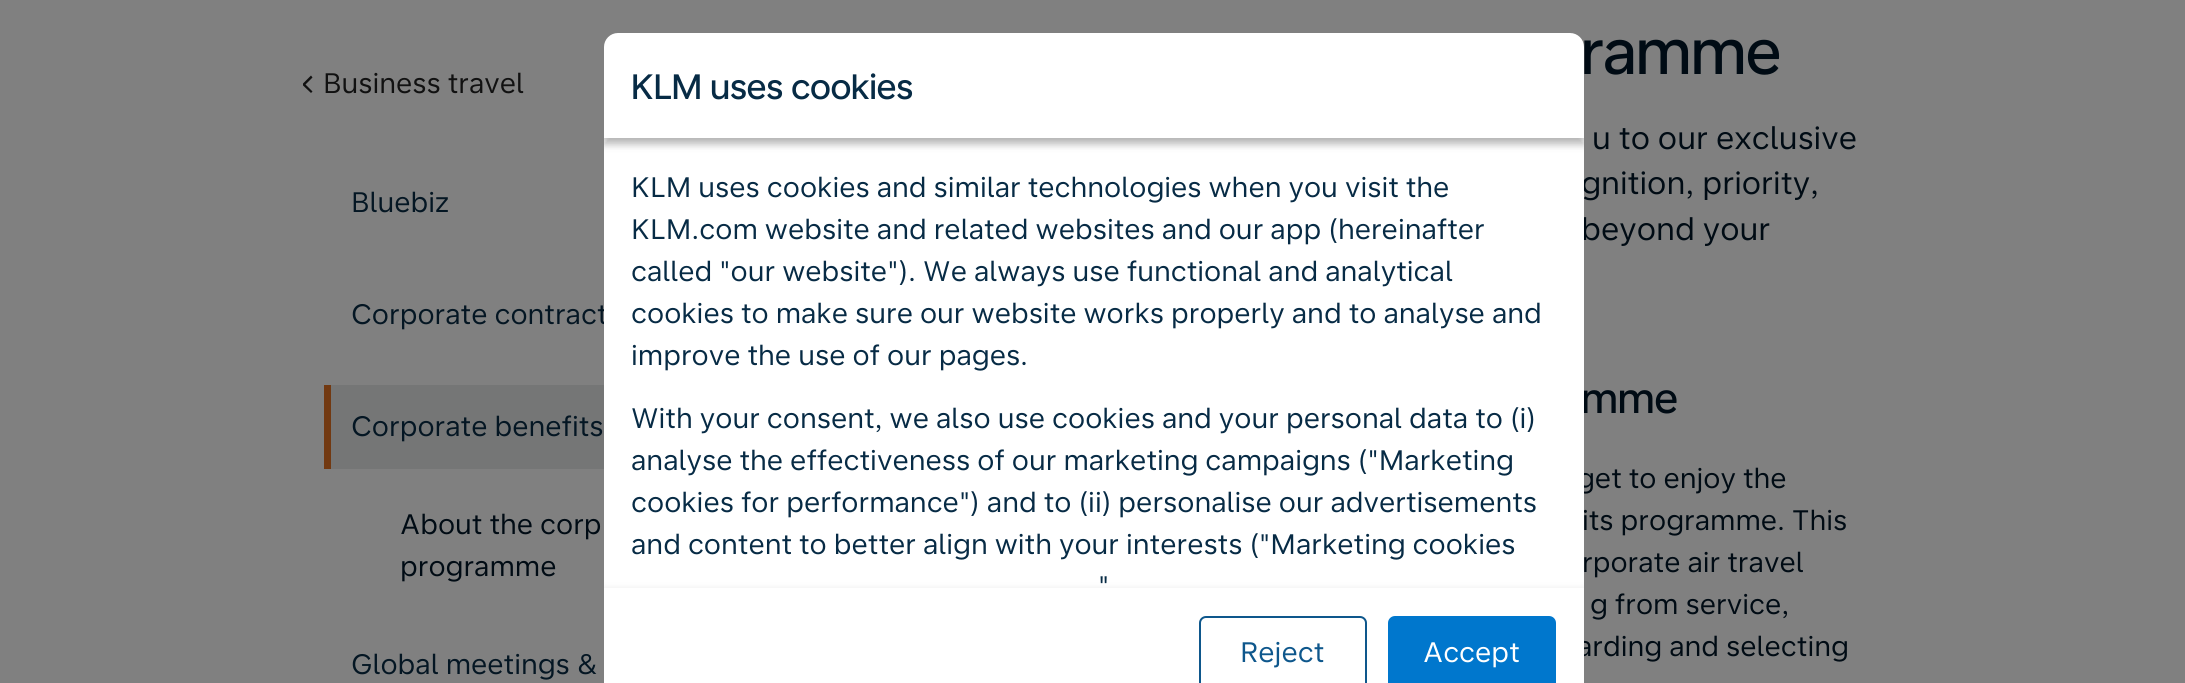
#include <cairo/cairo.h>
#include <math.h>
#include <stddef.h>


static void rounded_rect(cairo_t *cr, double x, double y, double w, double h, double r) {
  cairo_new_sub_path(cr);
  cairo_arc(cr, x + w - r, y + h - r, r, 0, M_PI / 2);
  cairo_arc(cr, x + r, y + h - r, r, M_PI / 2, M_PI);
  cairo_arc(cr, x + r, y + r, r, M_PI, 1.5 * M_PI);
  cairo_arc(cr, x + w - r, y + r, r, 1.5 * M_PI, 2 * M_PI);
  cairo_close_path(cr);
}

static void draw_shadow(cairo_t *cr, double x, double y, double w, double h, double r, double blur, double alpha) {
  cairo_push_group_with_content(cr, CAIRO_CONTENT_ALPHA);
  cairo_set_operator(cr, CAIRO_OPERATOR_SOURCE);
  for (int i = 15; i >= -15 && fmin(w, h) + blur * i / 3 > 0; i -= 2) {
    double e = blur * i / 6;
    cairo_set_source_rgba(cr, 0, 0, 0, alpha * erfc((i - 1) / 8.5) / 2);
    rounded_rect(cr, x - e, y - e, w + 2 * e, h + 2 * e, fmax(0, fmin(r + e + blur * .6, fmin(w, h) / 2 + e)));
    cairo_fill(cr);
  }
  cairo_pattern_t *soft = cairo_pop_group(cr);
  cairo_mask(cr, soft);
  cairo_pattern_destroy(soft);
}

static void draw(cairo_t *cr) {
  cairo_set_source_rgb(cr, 128 / 255.0, 128 / 255.0, 128 / 255.0);
  cairo_paint(cr);
  cairo_save(cr);
  cairo_rectangle(cr, 303, 75, 10, 18);
  cairo_clip(cr);
  cairo_set_source_rgb(cr, 17 / 255.0, 17 / 255.0, 17 / 255.0);
  cairo_new_path(cr);
  cairo_move_to(cr, 305.5, 84.5);
  cairo_line_to(cr, 312.5, 91.5);
  cairo_line_to(cr, 311, 93);
  cairo_line_to(cr, 302, 84.5);
  cairo_line_to(cr, 311, 75.5);
  cairo_line_to(cr, 312.5, 77.5);
  cairo_close_path(cr);
  cairo_fill(cr);
  cairo_restore(cr);
  cairo_set_source_rgb(cr, 117 / 255.0, 118 / 255.0, 118 / 255.0);
  cairo_rectangle(cr, 331, 385, 273, 84);
  cairo_fill(cr);
  cairo_set_source_rgb(cr, 114 / 255.0, 57 / 255.0, 17 / 255.0);
  cairo_rectangle(cr, 324, 385, 7, 84);
  cairo_fill(cr);
  cairo_select_font_face(cr, "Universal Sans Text", CAIRO_FONT_SLANT_NORMAL, CAIRO_FONT_WEIGHT_NORMAL);
  cairo_set_font_size(cr, 28);
  cairo_set_source_rgb(cr, 17 / 255.0, 17 / 255.0, 17 / 255.0);
  cairo_move_to(cr, 323, 93);
  cairo_show_text(cr, "Business travel");
  cairo_set_source_rgb(cr, 4 / 255.0, 22 / 255.0, 35 / 255.0);
  cairo_move_to(cr, 351, 212);
  cairo_show_text(cr, "Bluebiz");
  cairo_move_to(cr, 351, 324);
  cairo_show_text(cr, "Corporate contract");
  cairo_move_to(cr, 351, 436);
  cairo_show_text(cr, "Corporate benefits");
  cairo_set_source_rgb(cr, 0, 11 / 255.0, 20 / 255.0);
  cairo_move_to(cr, 400, 534);
  cairo_show_text(cr, "About the corp");
  cairo_move_to(cr, 400, 576);
  cairo_show_text(cr, "programme");
  cairo_set_source_rgb(cr, 4 / 255.0, 22 / 255.0, 35 / 255.0);
  cairo_move_to(cr, 351, 674);
  cairo_show_text(cr, "Global meetings &");
  cairo_select_font_face(cr, "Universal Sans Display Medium", CAIRO_FONT_SLANT_NORMAL, CAIRO_FONT_WEIGHT_NORMAL);
  cairo_set_font_size(cr, 63);
  cairo_set_source_rgb(cr, 0, 11 / 255.0, 20 / 255.0);
  cairo_move_to(cr, 1581, 74);
  cairo_show_text(cr, "ramme");
  cairo_select_font_face(cr, "Universal Sans Text", CAIRO_FONT_SLANT_NORMAL, CAIRO_FONT_WEIGHT_NORMAL);
  cairo_set_font_size(cr, 31.5);
  cairo_move_to(cr, 1592, 149);
  cairo_show_text(cr, "u to our exclusive");
  cairo_move_to(cr, 1581, 194);
  cairo_show_text(cr, "gnition, priority,");
  cairo_move_to(cr, 1581, 240);
  cairo_show_text(cr, "beyond your");
  cairo_select_font_face(cr, "Universal Sans Display Medium", CAIRO_FONT_SLANT_NORMAL, CAIRO_FONT_WEIGHT_NORMAL);
  cairo_set_font_size(cr, 42);
  cairo_move_to(cr, 1581, 413);
  cairo_show_text(cr, "mme");
  cairo_select_font_face(cr, "Universal Sans Text", CAIRO_FONT_SLANT_NORMAL, CAIRO_FONT_WEIGHT_NORMAL);
  cairo_set_font_size(cr, 28);
  cairo_move_to(cr, 1577, 488);
  cairo_show_text(cr, "get to enjoy the");
  cairo_move_to(cr, 1582, 530);
  cairo_show_text(cr, "its programme. This");
  cairo_move_to(cr, 1582, 572);
  cairo_show_text(cr, "rporate air travel");
  cairo_move_to(cr, 1590, 614);
  cairo_show_text(cr, "g from service,");
  cairo_move_to(cr, 1577, 656);
  cairo_show_text(cr, "arding and selecting");
  cairo_set_source_rgb(cr, 1, 1, 1);
  rounded_rect(cr, 604, 33, 980, 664, 14);
  cairo_fill(cr);
  cairo_save(cr);
  rounded_rect(cr, 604, 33, 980, 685, 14);
  cairo_clip(cr);
  cairo_set_fill_rule(cr, CAIRO_FILL_RULE_EVEN_ODD);
  cairo_new_path(cr);
  cairo_move_to(cr, 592, 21);
  cairo_line_to(cr, 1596, 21);
  cairo_line_to(cr, 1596, 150);
  cairo_line_to(cr, 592, 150);
  cairo_close_path(cr);
  cairo_move_to(cr, 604, 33);
  cairo_line_to(cr, 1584, 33);
  cairo_line_to(cr, 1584, 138);
  cairo_line_to(cr, 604, 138);
  cairo_close_path(cr);
  cairo_clip(cr);
  cairo_set_source_rgb(cr, 0, 0, 0);
  draw_shadow(cr, 604, 33, 980, 105, 0, 3.5, 0.12);
  cairo_restore(cr);
  cairo_save(cr);
  rounded_rect(cr, 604, 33, 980, 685, 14);
  cairo_clip(cr);
  cairo_set_fill_rule(cr, CAIRO_FILL_RULE_EVEN_ODD);
  cairo_new_path(cr);
  cairo_move_to(cr, 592, 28);
  cairo_line_to(cr, 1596, 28);
  cairo_line_to(cr, 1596, 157);
  cairo_line_to(cr, 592, 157);
  cairo_close_path(cr);
  cairo_move_to(cr, 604, 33);
  cairo_line_to(cr, 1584, 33);
  cairo_line_to(cr, 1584, 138);
  cairo_line_to(cr, 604, 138);
  cairo_close_path(cr);
  cairo_clip(cr);
  cairo_set_source_rgb(cr, 0, 0, 0);
  draw_shadow(cr, 604, 40, 980, 105, 0, 3.5, 0.24);
  cairo_restore(cr);
  cairo_select_font_face(cr, "Universal Sans Display Medium", CAIRO_FONT_SLANT_NORMAL, CAIRO_FONT_WEIGHT_NORMAL);
  cairo_set_font_size(cr, 35);
  cairo_set_source_rgb(cr, 7 / 255.0, 43 / 255.0, 69 / 255.0);
  cairo_move_to(cr, 631, 99);
  cairo_show_text(cr, "KLM uses cookies");
  cairo_select_font_face(cr, "Universal Sans Text", CAIRO_FONT_SLANT_NORMAL, CAIRO_FONT_WEIGHT_NORMAL);
  cairo_set_font_size(cr, 28);
  cairo_move_to(cr, 631, 197);
  cairo_show_text(cr, "KLM uses cookies and similar technologies when you visit the");
  cairo_move_to(cr, 631, 239);
  cairo_show_text(cr, "KLM.com website and related websites and our app (hereinafter");
  cairo_move_to(cr, 631, 281);
  cairo_show_text(cr, "called \"our website\"). We always use functional and analytical");
  cairo_move_to(cr, 631, 323);
  cairo_show_text(cr, "cookies to make sure our website works properly and to analyse and");
  cairo_move_to(cr, 631, 365);
  cairo_show_text(cr, "improve the use of our pages.");
  cairo_move_to(cr, 631, 428);
  cairo_show_text(cr, "With your consent, we also use cookies and your personal data to (i)");
  cairo_move_to(cr, 631, 470);
  cairo_show_text(cr, "analyse the effectiveness of our marketing campaigns (\"Marketing");
  cairo_move_to(cr, 631, 512);
  cairo_show_text(cr, "cookies for performance\") and to (ii) personalise our advertisements");
  cairo_move_to(cr, 631, 554);
  cairo_show_text(cr, "and content to better align with your interests (\"Marketing cookies");
  cairo_save(cr);
  rounded_rect(cr, 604, 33, 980, 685, 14);
  cairo_clip(cr);
  cairo_set_source_rgb(cr, 0, 0, 0);
  draw_shadow(cr, 604, 590, 980, 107, 0, 4.5, 0.12);
  cairo_restore(cr);
  cairo_move_to(cr, 1098, 596);
  cairo_show_text(cr, "\"");
  cairo_set_source_rgb(cr, 1, 1, 1);
  cairo_rectangle(cr, 604, 588, 980, 95);
  cairo_fill(cr);
  rounded_rect(cr, 1200, 617, 166, 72, 6);
  cairo_set_source_rgb(cr, 14 / 255.0, 87 / 255.0, 140 / 255.0);
  cairo_stroke(cr);
  cairo_move_to(cr, 1240, 662);
  cairo_show_text(cr, "Reject");
  cairo_set_source_rgb(cr, 0, 119 / 255.0, 205 / 255.0);
  rounded_rect(cr, 1388, 616, 168, 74, 7);
  cairo_fill(cr);
  cairo_set_source_rgb(cr, 1, 1, 1);
  cairo_move_to(cr, 1423, 662);
  cairo_show_text(cr, "Accept");
}

int main(void) {
  cairo_surface_t *surface = cairo_image_surface_create(CAIRO_FORMAT_RGB24, 2185, 683);
  cairo_t *cr = cairo_create(surface);
  cairo_font_options_t *options = cairo_font_options_create();
  cairo_font_options_set_hint_metrics(options, CAIRO_HINT_METRICS_OFF);
  cairo_font_options_set_hint_style(options, CAIRO_HINT_STYLE_NONE);
  cairo_set_font_options(cr, options);
  cairo_set_miter_limit(cr, 4);
  draw(cr);
  cairo_surface_write_to_png(surface, "out.png");
  cairo_font_options_destroy(options);
  cairo_destroy(cr);
  cairo_surface_destroy(surface);
  return 0;
}
